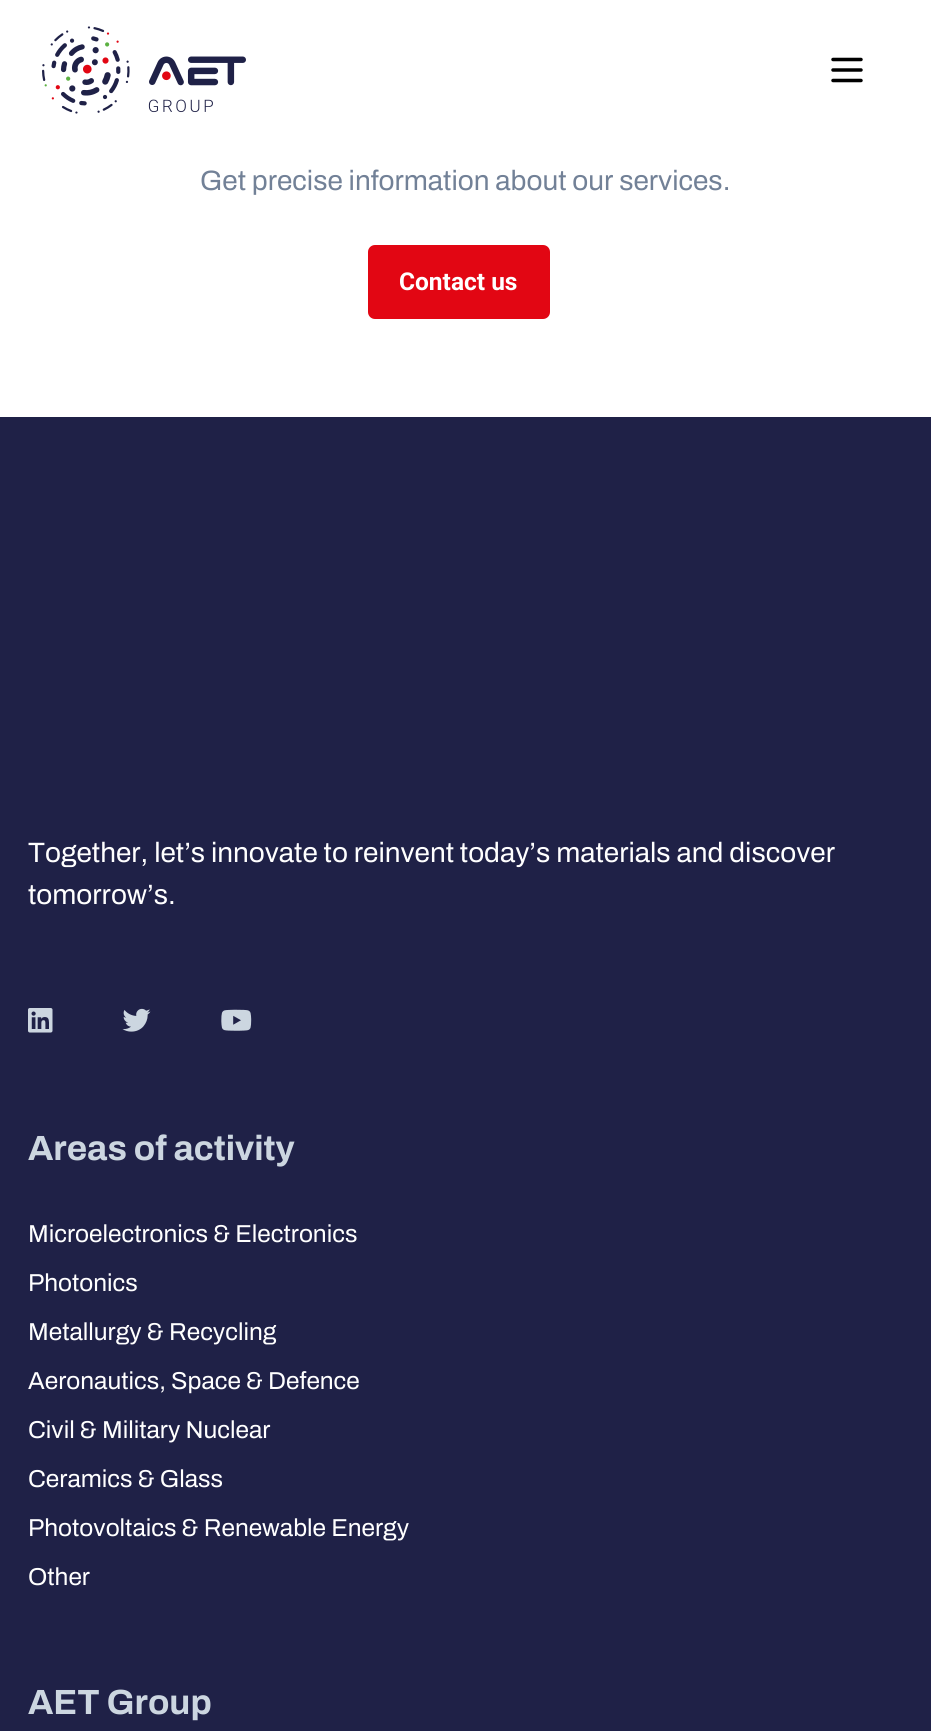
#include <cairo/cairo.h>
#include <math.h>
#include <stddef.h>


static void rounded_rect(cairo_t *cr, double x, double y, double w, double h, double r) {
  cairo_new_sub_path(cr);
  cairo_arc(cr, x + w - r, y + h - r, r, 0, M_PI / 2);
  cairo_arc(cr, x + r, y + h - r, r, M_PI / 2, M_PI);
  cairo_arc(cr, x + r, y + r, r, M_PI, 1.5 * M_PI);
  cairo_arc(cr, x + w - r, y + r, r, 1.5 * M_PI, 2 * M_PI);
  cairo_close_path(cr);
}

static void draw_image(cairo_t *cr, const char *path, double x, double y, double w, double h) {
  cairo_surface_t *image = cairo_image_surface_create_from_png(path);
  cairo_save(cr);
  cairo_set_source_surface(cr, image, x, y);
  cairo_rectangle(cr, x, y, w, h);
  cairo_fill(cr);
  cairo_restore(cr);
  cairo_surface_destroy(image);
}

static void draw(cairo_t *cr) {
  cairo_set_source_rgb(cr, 1, 1, 1);
  cairo_paint(cr);
  draw_image(cr, "images/1.png", 42, 26, 204, 88);
  draw_image(cr, "images/2.png", 831, 57, 32, 26);
  cairo_set_source_rgb(cr, 226 / 255.0, 6 / 255.0, 19 / 255.0);
  rounded_rect(cr, 370, 247, 178, 70, 5);
  cairo_fill_preserve(cr);
  cairo_set_line_width(cr, 4);
  cairo_stroke(cr);
  cairo_set_source_rgb(cr, 31 / 255.0, 33 / 255.0, 71 / 255.0);
  cairo_rectangle(cr, 0, 417, 931, 1314);
  cairo_fill(cr);
  draw_image(cr, "images/3.png", 28, 1008, 25, 25);
  draw_image(cr, "images/4.png", 122, 1008, 29, 24);
  draw_image(cr, "images/5.png", 221, 1009, 31, 22);
  cairo_select_font_face(cr, "Archivo", CAIRO_FONT_SLANT_NORMAL, CAIRO_FONT_WEIGHT_NORMAL);
  cairo_set_font_size(cr, 28);
  cairo_set_source_rgb(cr, 114 / 255.0, 129 / 255.0, 151 / 255.0);
  cairo_move_to(cr, 200, 190);
  cairo_show_text(cr, "Get precise information about our services.");
  cairo_select_font_face(cr, "Roboto", CAIRO_FONT_SLANT_NORMAL, CAIRO_FONT_WEIGHT_BOLD);
  cairo_set_font_size(cr, 24.5);
  cairo_set_source_rgb(cr, 1, 1, 1);
  cairo_move_to(cr, 399, 290);
  cairo_show_text(cr, "Contact us");
  cairo_select_font_face(cr, "Archivo", CAIRO_FONT_SLANT_NORMAL, CAIRO_FONT_WEIGHT_NORMAL);
  cairo_set_font_size(cr, 28);
  cairo_move_to(cr, 28, 862);
  cairo_show_text(cr, "Together, let’s innovate to reinvent today’s materials and discover");
  cairo_move_to(cr, 28, 904);
  cairo_show_text(cr, "tomorrow’s.");
  cairo_select_font_face(cr, "Archivo", CAIRO_FONT_SLANT_NORMAL, CAIRO_FONT_WEIGHT_BOLD);
  cairo_set_font_size(cr, 35);
  cairo_set_source_rgb(cr, 204 / 255.0, 214 / 255.0, 224 / 255.0);
  cairo_move_to(cr, 28, 1160);
  cairo_show_text(cr, "Areas of activity");
  cairo_select_font_face(cr, "Archivo", CAIRO_FONT_SLANT_NORMAL, CAIRO_FONT_WEIGHT_NORMAL);
  cairo_set_font_size(cr, 24.5);
  cairo_set_source_rgb(cr, 1, 1, 1);
  cairo_move_to(cr, 28, 1242);
  cairo_show_text(cr, "Microelectronics & Electronics");
  cairo_move_to(cr, 28, 1291);
  cairo_show_text(cr, "Photonics");
  cairo_move_to(cr, 28, 1340);
  cairo_show_text(cr, "Metallurgy & Recycling");
  cairo_move_to(cr, 28, 1389);
  cairo_show_text(cr, "Aeronautics, Space & Defence");
  cairo_move_to(cr, 28, 1438);
  cairo_show_text(cr, "Civil & Military Nuclear");
  cairo_move_to(cr, 28, 1487);
  cairo_show_text(cr, "Ceramics & Glass");
  cairo_move_to(cr, 28, 1536);
  cairo_show_text(cr, "Photovoltaics & Renewable Energy");
  cairo_move_to(cr, 28, 1585);
  cairo_show_text(cr, "Other");
  cairo_select_font_face(cr, "Archivo", CAIRO_FONT_SLANT_NORMAL, CAIRO_FONT_WEIGHT_BOLD);
  cairo_set_font_size(cr, 35);
  cairo_set_source_rgb(cr, 204 / 255.0, 214 / 255.0, 224 / 255.0);
  cairo_move_to(cr, 28, 1714);
  cairo_show_text(cr, "AET Group");
}

int main(void) {
  cairo_surface_t *surface = cairo_image_surface_create(CAIRO_FORMAT_RGB24, 931, 1731);
  cairo_t *cr = cairo_create(surface);
  cairo_font_options_t *options = cairo_font_options_create();
  cairo_font_options_set_hint_metrics(options, CAIRO_HINT_METRICS_OFF);
  cairo_font_options_set_hint_style(options, CAIRO_HINT_STYLE_NONE);
  cairo_set_font_options(cr, options);
  cairo_set_miter_limit(cr, 4);
  draw(cr);
  cairo_surface_write_to_png(surface, "out.png");
  cairo_font_options_destroy(options);
  cairo_destroy(cr);
  cairo_surface_destroy(surface);
  return 0;
}
